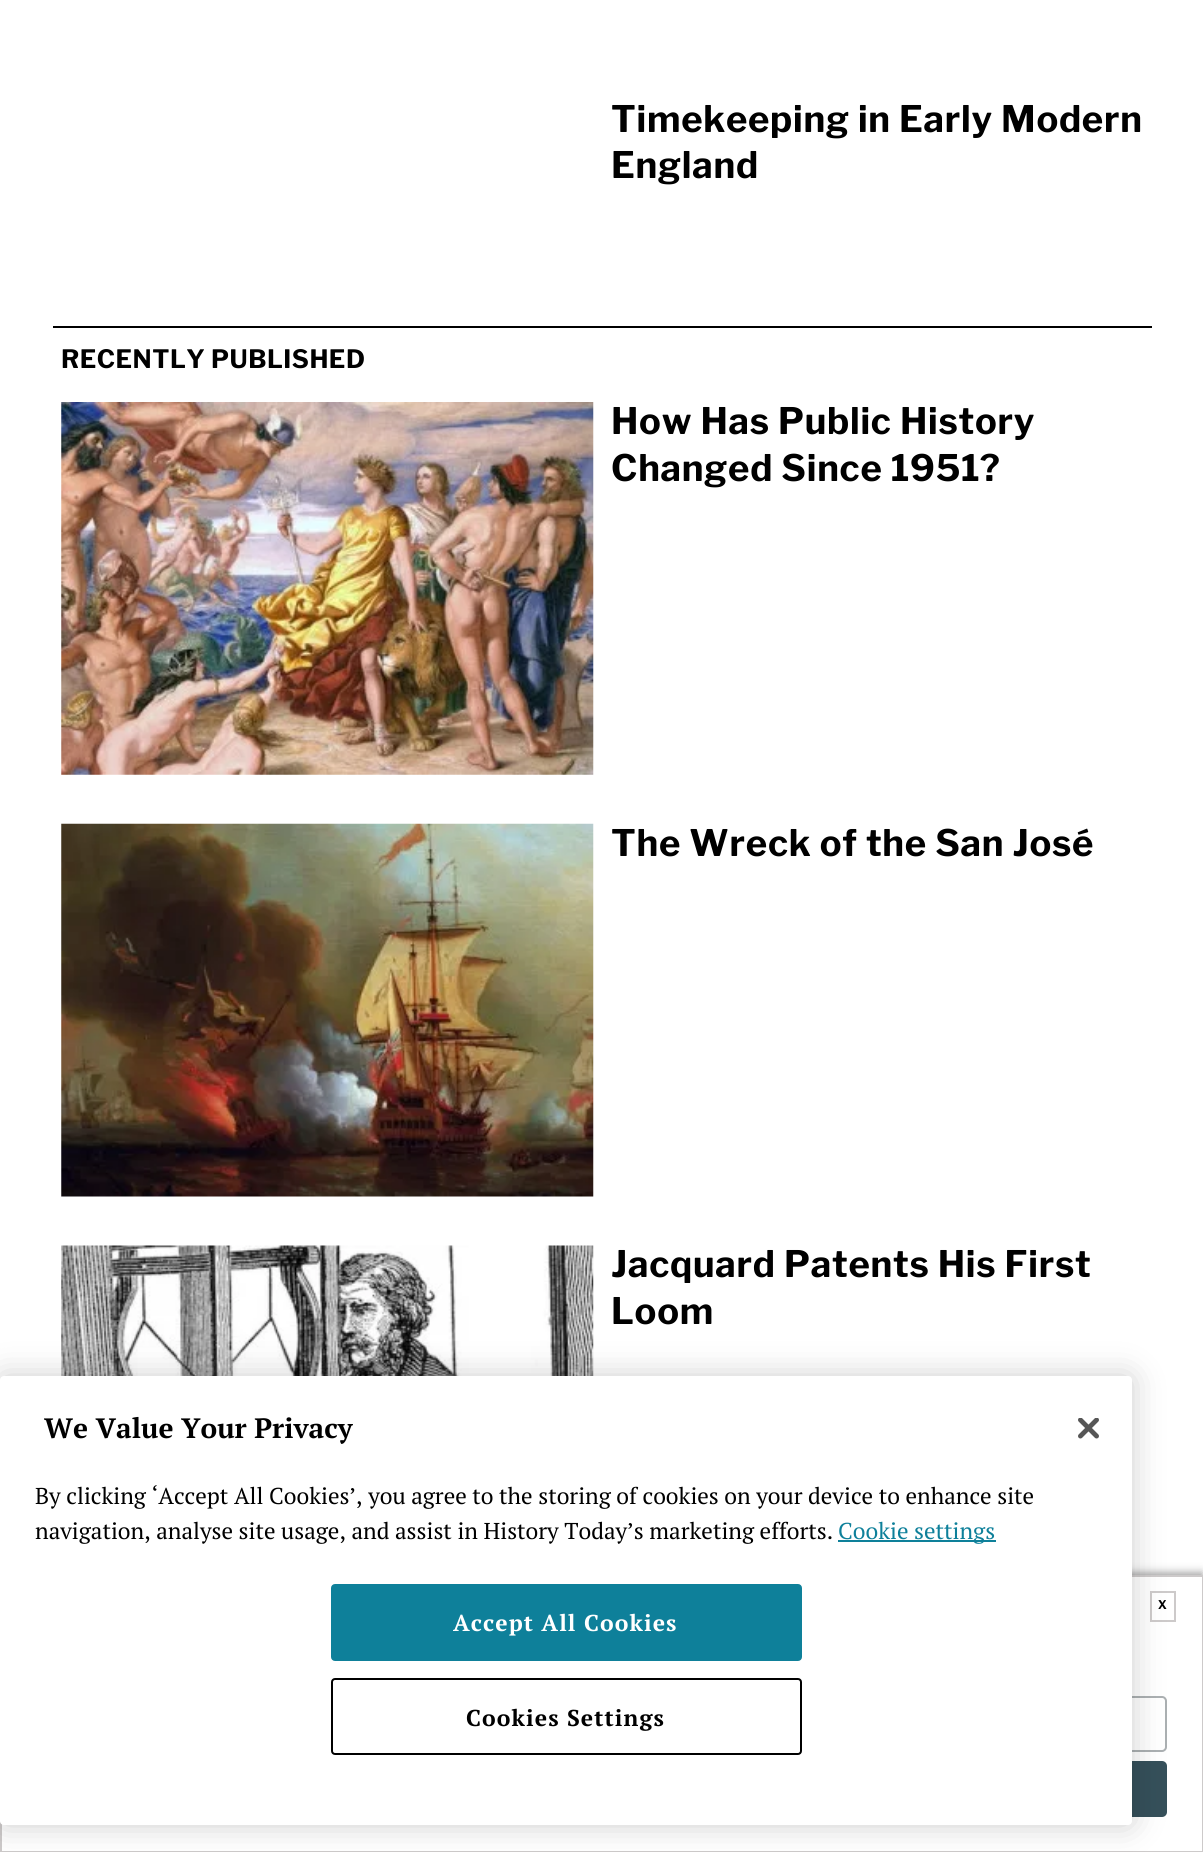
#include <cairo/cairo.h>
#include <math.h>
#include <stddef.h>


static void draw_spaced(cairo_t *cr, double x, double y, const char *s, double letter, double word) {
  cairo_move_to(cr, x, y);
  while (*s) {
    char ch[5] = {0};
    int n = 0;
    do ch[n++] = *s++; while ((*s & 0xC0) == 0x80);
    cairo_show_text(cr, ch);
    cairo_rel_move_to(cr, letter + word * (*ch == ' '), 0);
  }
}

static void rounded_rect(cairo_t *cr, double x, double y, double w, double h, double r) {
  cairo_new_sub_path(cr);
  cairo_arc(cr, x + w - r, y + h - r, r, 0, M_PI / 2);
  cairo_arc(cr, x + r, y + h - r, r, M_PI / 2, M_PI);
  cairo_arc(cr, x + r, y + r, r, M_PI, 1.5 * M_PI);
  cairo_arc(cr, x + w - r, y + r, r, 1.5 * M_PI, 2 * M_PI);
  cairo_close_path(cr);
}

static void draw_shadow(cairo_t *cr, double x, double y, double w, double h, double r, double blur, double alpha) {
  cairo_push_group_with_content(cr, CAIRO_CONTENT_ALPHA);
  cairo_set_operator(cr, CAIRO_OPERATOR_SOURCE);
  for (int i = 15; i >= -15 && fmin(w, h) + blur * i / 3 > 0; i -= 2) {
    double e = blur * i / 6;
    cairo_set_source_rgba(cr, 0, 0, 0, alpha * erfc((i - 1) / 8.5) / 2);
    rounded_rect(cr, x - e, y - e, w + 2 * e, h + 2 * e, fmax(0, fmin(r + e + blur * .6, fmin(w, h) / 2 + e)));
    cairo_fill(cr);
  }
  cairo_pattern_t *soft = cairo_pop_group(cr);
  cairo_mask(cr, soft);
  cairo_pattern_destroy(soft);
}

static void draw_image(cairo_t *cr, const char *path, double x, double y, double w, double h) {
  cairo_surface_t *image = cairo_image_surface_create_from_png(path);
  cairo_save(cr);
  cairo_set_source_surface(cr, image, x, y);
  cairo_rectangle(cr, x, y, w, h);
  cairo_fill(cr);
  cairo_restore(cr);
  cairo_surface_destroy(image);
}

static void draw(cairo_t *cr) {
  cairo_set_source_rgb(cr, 1, 1, 1);
  cairo_paint(cr);
  cairo_set_source_rgb(cr, 0, 0, 0);
  cairo_rectangle(cr, 53, 326, 1099, 2);
  cairo_fill(cr);
  draw_image(cr, "images/1.png", 61, 402, 533, 373);
  draw_image(cr, "images/2.png", 61, 823, 533, 374);
  draw_image(cr, "images/3.png", 61, 1245, 533, 131);
  cairo_set_source_rgb(cr, 153 / 255.0, 153 / 255.0, 153 / 255.0);
  draw_shadow(cr, -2, 1573, 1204, 279, 0, 4.5, 1);
  cairo_set_source_rgb(cr, 1, 1, 1);
  cairo_rectangle(cr, 1, 1576, 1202, 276);
  cairo_fill_preserve(cr);
  cairo_set_source_rgb(cr, 205 / 255.0, 202 / 255.0, 202 / 255.0);
  cairo_stroke(cr);
  cairo_rectangle(cr, 1151, 1592, 24, 29);
  cairo_stroke(cr);
  rounded_rect(cr, 38, 1697, 1128, 54, 4);
  cairo_set_source_rgb(cr, 171 / 255.0, 176 / 255.0, 178 / 255.0);
  cairo_stroke(cr);
  cairo_set_source_rgb(cr, 53 / 255.0, 80 / 255.0, 90 / 255.0);
  rounded_rect(cr, 37, 1761, 1130, 56, 5);
  cairo_fill(cr);
  cairo_set_source_rgb(cr, 0, 0, 0);
  draw_shadow(cr, 0, 1376, 1132, 449, 4, 16, 0.2);
  cairo_set_source_rgb(cr, 1, 1, 1);
  rounded_rect(cr, 0, 1376, 1132, 449, 4);
  cairo_fill(cr);
  cairo_set_source_rgb(cr, 14 / 255.0, 128 / 255.0, 154 / 255.0);
  cairo_rectangle(cr, 838, 1540, 158, 2);
  cairo_fill(cr);
  draw_image(cr, "images/4.png", 1078, 1418, 21, 21);
  rounded_rect(cr, 332, 1585, 469, 75, 3);
  cairo_fill_preserve(cr);
  cairo_stroke(cr);
  rounded_rect(cr, 332, 1679, 469, 75, 3);
  cairo_set_source_rgb(cr, 0, 0, 0);
  cairo_stroke(cr);
  cairo_select_font_face(cr, "Libre Franklin", CAIRO_FONT_SLANT_NORMAL, CAIRO_FONT_WEIGHT_BOLD);
  cairo_set_font_size(cr, 36.4);
  draw_spaced(cr, 611, 132, "Timekeeping in Early Modern", 0.75, 0);
  draw_spaced(cr, 611, 178, "England", 0.75, 0);
  cairo_set_font_size(cr, 25.25);
  draw_spaced(cr, 61, 368, "RECENTLY PUBLISHED", 0.5, 0);
  cairo_set_font_size(cr, 36.4);
  draw_spaced(cr, 611, 434, "How Has Public History", 0.75, 0);
  draw_spaced(cr, 611, 481, "Changed Since 1951?", 0.75, 0);
  draw_spaced(cr, 611, 856, "The Wreck of the San José", 0.75, 0);
  draw_spaced(cr, 611, 1277, "Jacquard Patents His First", 0.75, 0);
  draw_spaced(cr, 611, 1324, "Loom", 0.75, 0);
  cairo_set_font_size(cr, 12);
  cairo_move_to(cr, 1158, 1609);
  cairo_show_text(cr, "X");
  cairo_select_font_face(cr, "PT Serif", CAIRO_FONT_SLANT_NORMAL, CAIRO_FONT_WEIGHT_BOLD);
  cairo_set_font_size(cr, 28);
  cairo_move_to(cr, 44, 1438);
  cairo_show_text(cr, "We Value Your Privacy");
  cairo_select_font_face(cr, "PT Serif", CAIRO_FONT_SLANT_NORMAL, CAIRO_FONT_WEIGHT_NORMAL);
  cairo_set_font_size(cr, 22.95);
  cairo_move_to(cr, 35, 1504);
  cairo_show_text(cr, "By clicking ‘Accept All Cookies’, you agree to the storing of cookies on your device to enhance site");
  cairo_move_to(cr, 35, 1539);
  cairo_show_text(cr, "navigation, analyse site usage, and assist in History Today’s marketing efforts.");
  cairo_set_source_rgb(cr, 14 / 255.0, 128 / 255.0, 154 / 255.0);
  cairo_move_to(cr, 838, 1539);
  cairo_show_text(cr, "Cookie settings");
  cairo_select_font_face(cr, "PT Serif", CAIRO_FONT_SLANT_NORMAL, CAIRO_FONT_WEIGHT_BOLD);
  cairo_set_source_rgb(cr, 1, 1, 1);
  draw_spaced(cr, 453, 1631, "Accept All Cookies", 1.1, 0);
  cairo_set_source_rgb(cr, 0, 0, 0);
  draw_spaced(cr, 466, 1726, "Cookies Settings", 1.1, 0);
}

int main(void) {
  cairo_surface_t *surface = cairo_image_surface_create(CAIRO_FORMAT_RGB24, 1203, 1852);
  cairo_t *cr = cairo_create(surface);
  cairo_font_options_t *options = cairo_font_options_create();
  cairo_font_options_set_hint_metrics(options, CAIRO_HINT_METRICS_OFF);
  cairo_font_options_set_hint_style(options, CAIRO_HINT_STYLE_NONE);
  cairo_set_font_options(cr, options);
  cairo_set_miter_limit(cr, 4);
  draw(cr);
  cairo_surface_write_to_png(surface, "out.png");
  cairo_font_options_destroy(options);
  cairo_destroy(cr);
  cairo_surface_destroy(surface);
  return 0;
}
